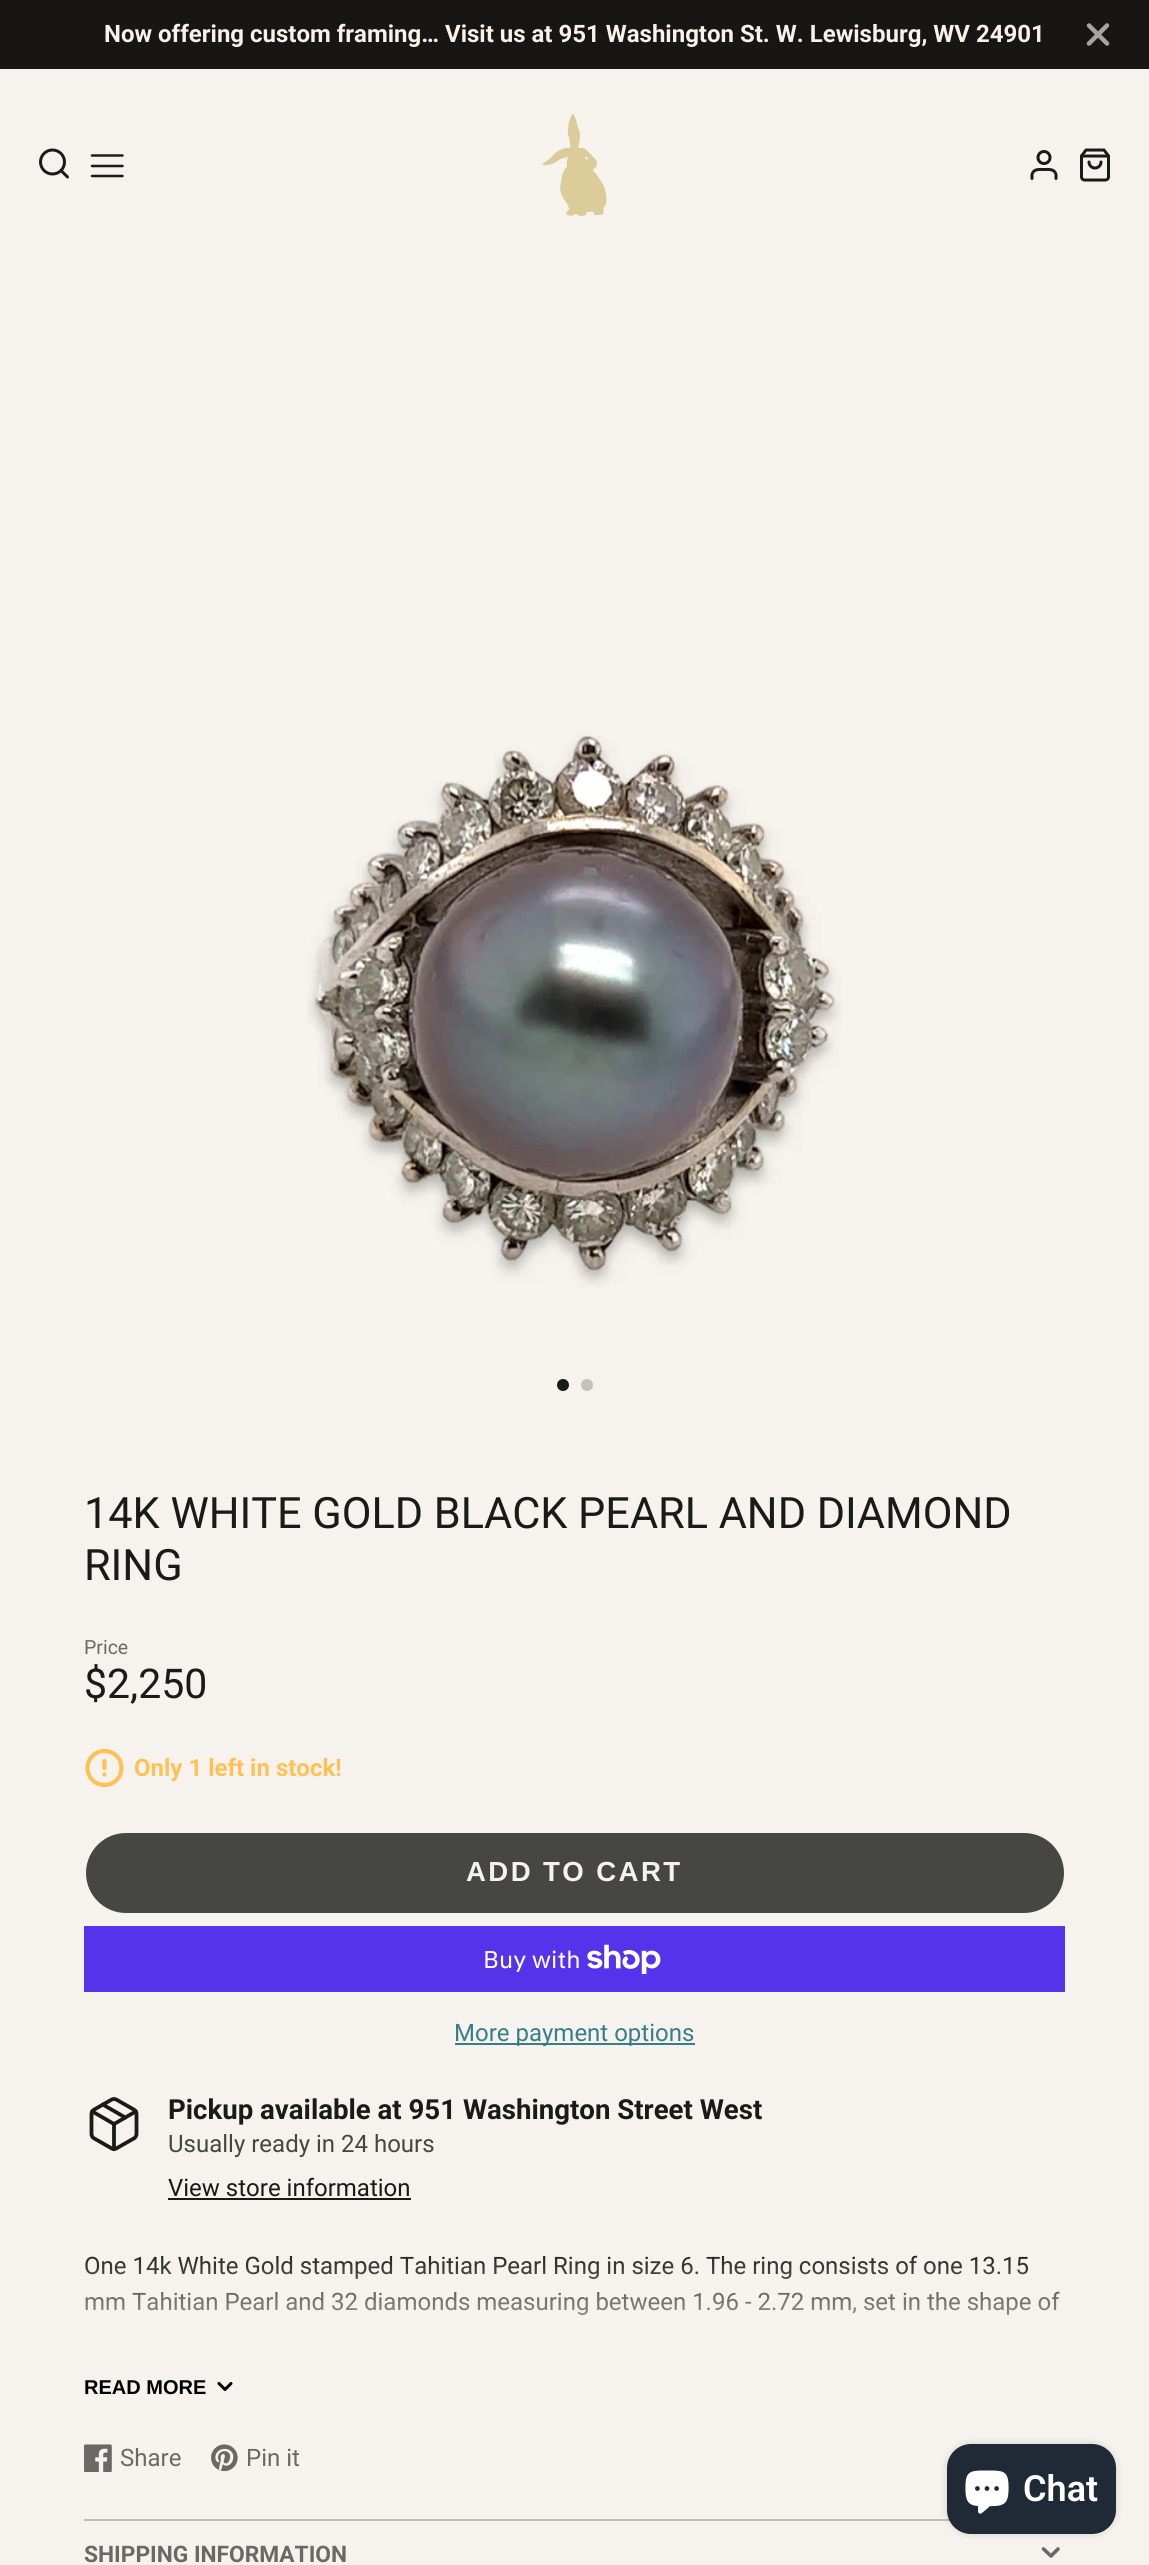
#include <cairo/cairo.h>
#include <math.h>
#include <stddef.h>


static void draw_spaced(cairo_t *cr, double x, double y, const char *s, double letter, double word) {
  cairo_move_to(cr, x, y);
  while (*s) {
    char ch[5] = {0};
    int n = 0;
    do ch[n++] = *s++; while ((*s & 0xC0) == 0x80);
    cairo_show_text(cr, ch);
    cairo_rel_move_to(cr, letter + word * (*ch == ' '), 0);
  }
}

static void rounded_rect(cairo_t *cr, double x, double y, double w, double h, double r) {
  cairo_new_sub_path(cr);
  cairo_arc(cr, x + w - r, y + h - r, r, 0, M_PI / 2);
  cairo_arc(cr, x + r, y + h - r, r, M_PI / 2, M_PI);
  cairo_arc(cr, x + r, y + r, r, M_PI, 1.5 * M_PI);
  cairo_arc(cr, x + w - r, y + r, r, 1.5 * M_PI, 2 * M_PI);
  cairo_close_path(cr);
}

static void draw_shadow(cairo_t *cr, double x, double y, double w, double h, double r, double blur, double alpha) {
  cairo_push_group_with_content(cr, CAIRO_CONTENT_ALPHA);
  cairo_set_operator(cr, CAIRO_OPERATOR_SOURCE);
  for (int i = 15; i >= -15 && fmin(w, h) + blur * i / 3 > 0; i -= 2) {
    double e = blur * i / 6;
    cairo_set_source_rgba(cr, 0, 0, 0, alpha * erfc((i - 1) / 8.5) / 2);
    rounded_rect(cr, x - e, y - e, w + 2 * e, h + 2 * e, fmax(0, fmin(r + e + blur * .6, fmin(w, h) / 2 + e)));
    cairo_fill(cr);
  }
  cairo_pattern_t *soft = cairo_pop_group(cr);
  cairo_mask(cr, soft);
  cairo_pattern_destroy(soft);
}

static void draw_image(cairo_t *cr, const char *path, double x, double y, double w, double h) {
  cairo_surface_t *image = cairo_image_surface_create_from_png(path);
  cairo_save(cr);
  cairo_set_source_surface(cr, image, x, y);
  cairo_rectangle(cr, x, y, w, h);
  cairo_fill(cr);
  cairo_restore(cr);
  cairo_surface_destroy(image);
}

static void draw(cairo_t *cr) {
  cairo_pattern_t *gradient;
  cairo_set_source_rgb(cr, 246 / 255.0, 243 / 255.0, 238 / 255.0);
  cairo_paint(cr);
  cairo_set_source_rgb(cr, 24 / 255.0, 21 / 255.0, 21 / 255.0);
  cairo_rectangle(cr, 0, 0, 1149, 69);
  cairo_fill(cr);
  cairo_new_path(cr);
  cairo_move_to(cr, 1107, 25.5);
  cairo_line_to(cr, 1089, 43.5);
  cairo_move_to(cr, 1089, 25.5);
  cairo_line_to(cr, 1107, 43.5);
  cairo_set_source_rgb(cr, 166 / 255.0, 163 / 255.0, 160 / 255.0);
  cairo_set_line_width(cr, 4.5);
  cairo_set_line_cap(cr, CAIRO_LINE_CAP_ROUND);
  cairo_set_line_join(cr, CAIRO_LINE_JOIN_ROUND);
  cairo_stroke(cr);
  cairo_arc(cr, 52.5, 162, 12, 0, 2 * M_PI);
  cairo_set_source_rgb(cr, 26 / 255.0, 27 / 255.0, 24 / 255.0);
  cairo_set_line_width(cr, 3);
  cairo_set_line_cap(cr, CAIRO_LINE_CAP_BUTT);
  cairo_set_line_join(cr, CAIRO_LINE_JOIN_MITER);
  cairo_stroke(cr);
  cairo_new_path(cr);
  cairo_move_to(cr, 67.5, 177);
  cairo_line_to(cr, 61, 170.5);
  cairo_set_line_cap(cr, CAIRO_LINE_CAP_ROUND);
  cairo_set_line_join(cr, CAIRO_LINE_JOIN_ROUND);
  cairo_stroke(cr);
  cairo_new_path(cr);
  cairo_move_to(cr, 92, 166);
  cairo_line_to(cr, 122.5, 166);
  cairo_move_to(cr, 92, 155.5);
  cairo_line_to(cr, 122.5, 155.5);
  cairo_move_to(cr, 92, 176);
  cairo_line_to(cr, 122.5, 176);
  cairo_set_line_width(cr, 2.5);
  cairo_stroke(cr);
  draw_image(cr, "images/1.png", 542, 114, 65, 102);
  cairo_arc(cr, 1044, 157.5, 6, 0, 2 * M_PI);
  cairo_set_line_width(cr, 3);
  cairo_set_line_cap(cr, CAIRO_LINE_CAP_BUTT);
  cairo_set_line_join(cr, CAIRO_LINE_JOIN_MITER);
  cairo_stroke(cr);
  cairo_new_path(cr);
  cairo_move_to(cr, 1056, 178.5);
  cairo_line_to(cr, 1056, 174.5);
  cairo_curve_to(cr, 1054.5, 168.5, 1048.5, 169.5, 1044, 169.5);
  cairo_curve_to(cr, 1039.5, 169.5, 1033.5, 168.5, 1032, 174.5);
  cairo_line_to(cr, 1032, 178.5);
  cairo_set_line_cap(cr, CAIRO_LINE_CAP_ROUND);
  cairo_set_line_join(cr, CAIRO_LINE_JOIN_ROUND);
  cairo_stroke(cr);
  draw_image(cr, "images/2.png", 1080, 148, 30, 34);
  draw_image(cr, "images/3.png", 307, 732, 535, 556);
  cairo_arc(cr, 563, 1385, 6, 0, 2 * M_PI);
  cairo_fill(cr);
  cairo_set_source_rgb(cr, 197 / 255.0, 194 / 255.0, 190 / 255.0);
  cairo_arc(cr, 587, 1385, 6, 0, 2 * M_PI);
  cairo_fill(cr);
  cairo_arc(cr, 104.5, 1768, 17, 0, 2 * M_PI);
  cairo_set_source_rgb(cr, 1, 193 / 255.0, 84 / 255.0);
  cairo_set_line_width(cr, 4.2);
  cairo_set_line_cap(cr, CAIRO_LINE_CAP_BUTT);
  cairo_set_line_join(cr, CAIRO_LINE_JOIN_MITER);
  cairo_stroke(cr);
  cairo_new_path(cr);
  cairo_move_to(cr, 104.5, 1761);
  cairo_line_to(cr, 104.5, 1768);
  cairo_move_to(cr, 104.5, 1774.5);
  cairo_line_to(cr, 104.5, 1774.5);
  cairo_set_line_cap(cr, CAIRO_LINE_CAP_ROUND);
  cairo_set_line_join(cr, CAIRO_LINE_JOIN_ROUND);
  cairo_stroke(cr);
  cairo_set_source_rgb(cr, 70 / 255.0, 70 / 255.0, 67 / 255.0);
  rounded_rect(cr, 86, 1833, 978, 80, 40);
  cairo_fill(cr);
  cairo_set_source_rgb(cr, 84 / 255.0, 51 / 255.0, 235 / 255.0);
  cairo_rectangle(cr, 84, 1926, 981, 66);
  cairo_fill(cr);
  draw_image(cr, "images/4.png", 587, 1944, 74, 30);
  cairo_set_source_rgb(cr, 56 / 255.0, 126 / 255.0, 137 / 255.0);
  cairo_rectangle(cr, 455, 2043, 240, 2);
  cairo_fill(cr);
  draw_image(cr, "images/5.png", 89, 2097, 50, 55);
  cairo_set_source_rgb(cr, 26 / 255.0, 27 / 255.0, 24 / 255.0);
  cairo_rectangle(cr, 168, 2198, 243, 2);
  cairo_fill(cr);
  cairo_new_path(cr);
  cairo_move_to(cr, 219, 2383.5);
  cairo_line_to(cr, 225, 2389.5);
  cairo_line_to(cr, 231, 2383.5);
  cairo_set_source_rgb(cr, 0, 0, 0);
  cairo_set_line_width(cr, 3);
  cairo_stroke(cr);
  draw_image(cr, "images/6.png", 84, 2444, 28, 28);
  draw_image(cr, "images/7.png", 211, 2444, 27, 28);
  cairo_set_source_rgb(cr, 191 / 255.0, 189 / 255.0, 185 / 255.0);
  cairo_rectangle(cr, 84, 2519, 866, 2);
  cairo_fill(cr);
  cairo_new_path(cr);
  cairo_move_to(cr, 1043.5, 2549);
  cairo_line_to(cr, 1051, 2556);
  cairo_line_to(cr, 1058, 2549);
  cairo_set_source_rgb(cr, 105 / 255.0, 105 / 255.0, 101 / 255.0);
  cairo_set_line_width(cr, 3.6);
  cairo_stroke(cr);
  cairo_set_source_rgb(cr, 0, 0, 0);
  draw_shadow(cr, 947, 2444, 169, 90, 24, 4, 0.15);
  cairo_set_source_rgb(cr, 32 / 255.0, 42 / 255.0, 54 / 255.0);
  rounded_rect(cr, 947, 2444, 169, 90, 24);
  cairo_fill(cr);
  draw_image(cr, "images/8.png", 965, 2470, 44, 44);
  cairo_select_font_face(cr, "Roboto", CAIRO_FONT_SLANT_NORMAL, CAIRO_FONT_WEIGHT_BOLD);
  cairo_set_font_size(cr, 24);
  cairo_set_source_rgb(cr, 246 / 255.0, 243 / 255.0, 238 / 255.0);
  cairo_move_to(cr, 104, 42);
  cairo_show_text(cr, "Now offering custom framing… Visit us at 951 Washington St. W. Lewisburg, WV 24901");
  cairo_select_font_face(cr, "Roboto", CAIRO_FONT_SLANT_NORMAL, CAIRO_FONT_WEIGHT_NORMAL);
  cairo_set_font_size(cr, 43.2);
  cairo_set_source_rgb(cr, 26 / 255.0, 27 / 255.0, 24 / 255.0);
  cairo_move_to(cr, 84, 1528);
  cairo_show_text(cr, "14K WHITE GOLD BLACK PEARL AND DIAMOND");
  cairo_move_to(cr, 84, 1580);
  cairo_show_text(cr, "RING");
  cairo_set_font_size(cr, 19.5);
  cairo_set_source_rgb(cr, 105 / 255.0, 105 / 255.0, 101 / 255.0);
  cairo_move_to(cr, 84, 1654);
  cairo_show_text(cr, "Price");
  cairo_set_font_size(cr, 41);
  cairo_set_source_rgb(cr, 26 / 255.0, 27 / 255.0, 24 / 255.0);
  cairo_move_to(cr, 84, 1698);
  cairo_show_text(cr, "$2,250");
  cairo_select_font_face(cr, "Roboto", CAIRO_FONT_SLANT_NORMAL, CAIRO_FONT_WEIGHT_BOLD);
  cairo_set_font_size(cr, 24);
  cairo_set_source_rgb(cr, 1, 193 / 255.0, 84 / 255.0);
  cairo_move_to(cr, 134, 1776);
  cairo_show_text(cr, "Only 1 left in stock!");
  cairo_select_font_face(cr, "Liberation Sans", CAIRO_FONT_SLANT_NORMAL, CAIRO_FONT_WEIGHT_BOLD);
  cairo_set_font_size(cr, 27.6);
  cairo_set_source_rgb(cr, 246 / 255.0, 243 / 255.0, 238 / 255.0);
  draw_spaced(cr, 466, 1881, "ADD TO CART", 2.4, 0);
  cairo_select_font_face(cr, "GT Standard", CAIRO_FONT_SLANT_NORMAL, CAIRO_FONT_WEIGHT_NORMAL);
  cairo_set_font_size(cr, 24);
  cairo_set_source_rgb(cr, 1, 1, 1);
  cairo_move_to(cr, 483, 1968);
  cairo_show_text(cr, "Buy with");
  cairo_select_font_face(cr, "Roboto", CAIRO_FONT_SLANT_NORMAL, CAIRO_FONT_WEIGHT_NORMAL);
  cairo_set_source_rgb(cr, 56 / 255.0, 126 / 255.0, 137 / 255.0);
  cairo_move_to(cr, 454, 2041);
  cairo_show_text(cr, "More payment options");
  cairo_select_font_face(cr, "Roboto", CAIRO_FONT_SLANT_NORMAL, CAIRO_FONT_WEIGHT_BOLD);
  cairo_set_font_size(cr, 27.6);
  cairo_set_source_rgb(cr, 26 / 255.0, 27 / 255.0, 24 / 255.0);
  cairo_move_to(cr, 168, 2119);
  cairo_show_text(cr, "Pickup available at 951 Washington Street West");
  cairo_select_font_face(cr, "Roboto", CAIRO_FONT_SLANT_NORMAL, CAIRO_FONT_WEIGHT_NORMAL);
  cairo_set_font_size(cr, 24);
  cairo_set_source_rgb(cr, 70 / 255.0, 70 / 255.0, 67 / 255.0);
  cairo_move_to(cr, 168, 2152);
  cairo_show_text(cr, "Usually ready in 24 hours");
  cairo_set_source_rgb(cr, 26 / 255.0, 27 / 255.0, 24 / 255.0);
  cairo_move_to(cr, 168, 2196);
  cairo_show_text(cr, "View store information");
  cairo_move_to(cr, 84, 2274);
  cairo_show_text(cr, "One 14k White Gold stamped Tahitian Pearl Ring in size 6. The ring consists of one 13.15");
  cairo_move_to(cr, 84, 2310);
  cairo_show_text(cr, "mm Tahitian Pearl and 32 diamonds measuring between 1.96 - 2.72 mm, set in the shape of");
  gradient = cairo_pattern_create_linear(575, 2399, 575, 2249);
  cairo_pattern_add_color_stop_rgba(gradient, 0.15, 246 / 255.0, 243 / 255.0, 238 / 255.0, 1);
  cairo_pattern_add_color_stop_rgba(gradient, 1, 246 / 255.0, 243 / 255.0, 238 / 255.0, 0);
  cairo_set_source(cr, gradient);
  cairo_pattern_destroy(gradient);
  cairo_rectangle(cr, 85, 2255, 975, 60);
  cairo_fill(cr);
  cairo_select_font_face(cr, "Liberation Sans", CAIRO_FONT_SLANT_NORMAL, CAIRO_FONT_WEIGHT_BOLD);
  cairo_set_font_size(cr, 20);
  cairo_set_source_rgb(cr, 0, 0, 0);
  cairo_move_to(cr, 84, 2394);
  cairo_show_text(cr, "READ MORE");
  cairo_select_font_face(cr, "Roboto", CAIRO_FONT_SLANT_NORMAL, CAIRO_FONT_WEIGHT_NORMAL);
  cairo_set_font_size(cr, 24);
  cairo_set_source_rgb(cr, 105 / 255.0, 105 / 255.0, 101 / 255.0);
  cairo_move_to(cr, 120, 2466);
  cairo_show_text(cr, "Share");
  cairo_move_to(cr, 246, 2466);
  cairo_show_text(cr, "Pin it");
  cairo_select_font_face(cr, "Roboto", CAIRO_FONT_SLANT_NORMAL, CAIRO_FONT_WEIGHT_BOLD);
  cairo_set_font_size(cr, 22.75);
  cairo_move_to(cr, 84, 2562);
  cairo_show_text(cr, "SHIPPING INFORMATION");
  cairo_select_font_face(cr, "Roboto SemiBold", CAIRO_FONT_SLANT_NORMAL, CAIRO_FONT_WEIGHT_NORMAL);
  cairo_set_font_size(cr, 36);
  cairo_set_source_rgb(cr, 1, 1, 1);
  cairo_move_to(cr, 1023, 2501);
  cairo_show_text(cr, "Chat");
}

int main(void) {
  cairo_surface_t *surface = cairo_image_surface_create(CAIRO_FORMAT_RGB24, 1149, 2565);
  cairo_t *cr = cairo_create(surface);
  cairo_font_options_t *options = cairo_font_options_create();
  cairo_font_options_set_hint_metrics(options, CAIRO_HINT_METRICS_OFF);
  cairo_font_options_set_hint_style(options, CAIRO_HINT_STYLE_NONE);
  cairo_set_font_options(cr, options);
  cairo_set_miter_limit(cr, 4);
  draw(cr);
  cairo_surface_write_to_png(surface, "out.png");
  cairo_font_options_destroy(options);
  cairo_destroy(cr);
  cairo_surface_destroy(surface);
  return 0;
}
